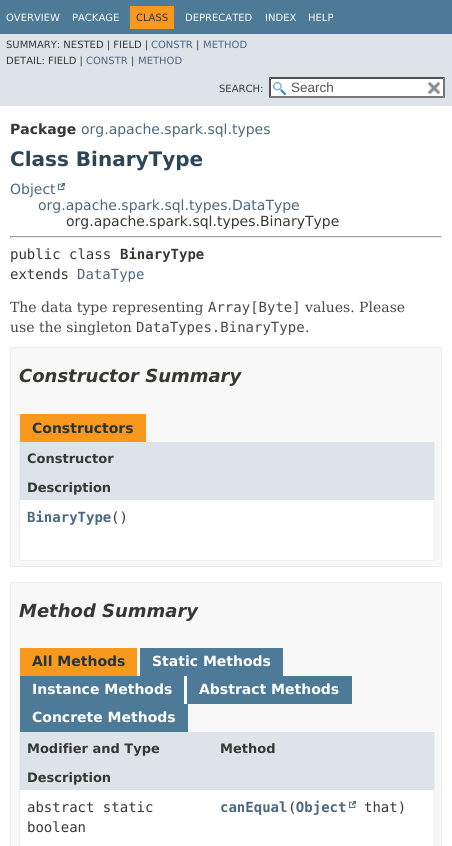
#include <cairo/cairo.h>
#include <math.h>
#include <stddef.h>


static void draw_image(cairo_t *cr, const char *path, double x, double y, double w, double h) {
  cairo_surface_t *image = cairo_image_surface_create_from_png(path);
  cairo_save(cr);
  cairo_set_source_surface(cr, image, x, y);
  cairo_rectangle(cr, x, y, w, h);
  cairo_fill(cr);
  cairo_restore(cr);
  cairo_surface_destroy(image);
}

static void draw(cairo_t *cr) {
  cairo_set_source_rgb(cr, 1, 1, 1);
  cairo_paint(cr);
  cairo_set_source_rgb(cr, 77 / 255.0, 122 / 255.0, 151 / 255.0);
  cairo_rectangle(cr, 0, 0, 452, 34);
  cairo_fill(cr);
  cairo_set_source_rgb(cr, 248 / 255.0, 152 / 255.0, 29 / 255.0);
  cairo_rectangle(cr, 130, 6, 44, 23);
  cairo_fill(cr);
  cairo_set_source_rgb(cr, 222 / 255.0, 227 / 255.0, 233 / 255.0);
  cairo_rectangle(cr, 0, 34, 452, 72);
  cairo_fill(cr);
  cairo_set_source_rgb(cr, 1, 1, 1);
  cairo_rectangle(cr, 269, 77, 176, 21);
  cairo_fill(cr);
  draw_image(cr, "images/1.png", 273, 82, 13, 13);
  cairo_set_source_rgb(cr, 79 / 255.0, 79 / 255.0, 79 / 255.0);
  cairo_new_path(cr);
  cairo_move_to(cr, 269, 77);
  cairo_line_to(cr, 445, 77);
  cairo_line_to(cr, 443, 79);
  cairo_line_to(cr, 271, 79);
  cairo_close_path(cr);
  cairo_fill(cr);
  cairo_set_source_rgb(cr, 118 / 255.0, 118 / 255.0, 118 / 255.0);
  cairo_new_path(cr);
  cairo_move_to(cr, 445, 77);
  cairo_line_to(cr, 445, 98);
  cairo_line_to(cr, 443, 96);
  cairo_line_to(cr, 443, 79);
  cairo_close_path(cr);
  cairo_fill(cr);
  cairo_new_path(cr);
  cairo_move_to(cr, 445, 98);
  cairo_line_to(cr, 269, 98);
  cairo_line_to(cr, 271, 96);
  cairo_line_to(cr, 443, 96);
  cairo_close_path(cr);
  cairo_fill(cr);
  cairo_set_source_rgb(cr, 79 / 255.0, 79 / 255.0, 79 / 255.0);
  cairo_new_path(cr);
  cairo_move_to(cr, 269, 98);
  cairo_line_to(cr, 269, 77);
  cairo_line_to(cr, 271, 79);
  cairo_line_to(cr, 271, 96);
  cairo_close_path(cr);
  cairo_fill(cr);
  draw_image(cr, "images/2.png", 427, 81, 14, 14);
  draw_image(cr, "images/3.png", 58, 183, 7, 7);
  cairo_set_source_rgb(cr, 159 / 255.0, 159 / 255.0, 159 / 255.0);
  cairo_rectangle(cr, 10, 236, 432, 1);
  cairo_fill(cr);
  cairo_set_source_rgb(cr, 238 / 255.0, 238 / 255.0, 238 / 255.0);
  cairo_rectangle(cr, 441, 236, 1, 2);
  cairo_fill(cr);
  cairo_rectangle(cr, 10, 237, 432, 1);
  cairo_fill(cr);
  cairo_set_source_rgb(cr, 159 / 255.0, 159 / 255.0, 159 / 255.0);
  cairo_rectangle(cr, 10, 236, 1, 2);
  cairo_fill(cr);
  cairo_set_source_rgb(cr, 248 / 255.0, 248 / 255.0, 248 / 255.0);
  cairo_rectangle(cr, 10.5, 347.5, 431, 219);
  cairo_fill_preserve(cr);
  cairo_set_source_rgb(cr, 237 / 255.0, 237 / 255.0, 237 / 255.0);
  cairo_set_line_width(cr, 1);
  cairo_stroke(cr);
  cairo_set_source_rgb(cr, 248 / 255.0, 152 / 255.0, 29 / 255.0);
  cairo_rectangle(cr, 20, 414, 126, 28);
  cairo_fill(cr);
  cairo_set_source_rgb(cr, 238 / 255.0, 238 / 255.0, 238 / 255.0);
  cairo_rectangle(cr, 434, 442, 1, 119);
  cairo_fill(cr);
  cairo_rectangle(cr, 19, 560, 416, 1);
  cairo_fill(cr);
  cairo_rectangle(cr, 19, 442, 1, 119);
  cairo_fill(cr);
  cairo_set_source_rgb(cr, 222 / 255.0, 227 / 255.0, 233 / 255.0);
  cairo_rectangle(cr, 20, 442, 414, 58);
  cairo_fill(cr);
  cairo_set_source_rgb(cr, 1, 1, 1);
  cairo_rectangle(cr, 20, 500, 414, 60);
  cairo_fill(cr);
  cairo_set_source_rgb(cr, 248 / 255.0, 248 / 255.0, 248 / 255.0);
  cairo_rectangle(cr, 10.5, 582.5, 431, 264);
  cairo_fill_preserve(cr);
  cairo_set_source_rgb(cr, 237 / 255.0, 237 / 255.0, 237 / 255.0);
  cairo_stroke(cr);
  cairo_set_source_rgb(cr, 248 / 255.0, 152 / 255.0, 29 / 255.0);
  cairo_rectangle(cr, 20, 648, 117, 28);
  cairo_fill(cr);
  cairo_set_source_rgb(cr, 77 / 255.0, 122 / 255.0, 151 / 255.0);
  cairo_rectangle(cr, 140, 648, 143, 28);
  cairo_fill(cr);
  cairo_rectangle(cr, 20, 676, 164, 28);
  cairo_fill(cr);
  cairo_rectangle(cr, 187, 676, 165, 28);
  cairo_fill(cr);
  cairo_rectangle(cr, 20, 704, 168, 28);
  cairo_fill(cr);
  cairo_set_source_rgb(cr, 238 / 255.0, 238 / 255.0, 238 / 255.0);
  cairo_rectangle(cr, 434, 732, 1, 114);
  cairo_fill(cr);
  cairo_rectangle(cr, 19, 732, 1, 114);
  cairo_fill(cr);
  cairo_set_source_rgb(cr, 222 / 255.0, 227 / 255.0, 233 / 255.0);
  cairo_rectangle(cr, 20, 732, 414, 29);
  cairo_fill(cr);
  cairo_rectangle(cr, 20, 761, 414, 29);
  cairo_fill(cr);
  cairo_set_source_rgb(cr, 1, 1, 1);
  cairo_rectangle(cr, 20, 790, 414, 50);
  cairo_fill(cr);
  draw_image(cr, "images/3.png", 349, 801, 7, 7);
  cairo_rectangle(cr, 20, 840, 414, 6);
  cairo_fill(cr);
  cairo_select_font_face(cr, "DejaVu Sans", CAIRO_FONT_SLANT_NORMAL, CAIRO_FONT_WEIGHT_NORMAL);
  cairo_set_font_size(cr, 10);
  cairo_move_to(cr, 6, 21);
  cairo_show_text(cr, "OVERVIEW");
  cairo_move_to(cr, 72, 21);
  cairo_show_text(cr, "PACKAGE");
  cairo_set_source_rgb(cr, 37 / 255.0, 52 / 255.0, 65 / 255.0);
  cairo_move_to(cr, 136, 21);
  cairo_show_text(cr, "CLASS");
  cairo_set_source_rgb(cr, 1, 1, 1);
  cairo_move_to(cr, 185, 21);
  cairo_show_text(cr, "DEPRECATED");
  cairo_move_to(cr, 265, 21);
  cairo_show_text(cr, "INDEX");
  cairo_move_to(cr, 308, 21);
  cairo_show_text(cr, "HELP");
  cairo_set_source_rgb(cr, 53 / 255.0, 56 / 255.0, 51 / 255.0);
  cairo_move_to(cr, 6, 48);
  cairo_show_text(cr, "SUMMARY: NESTED | FIELD |");
  cairo_set_source_rgb(cr, 74 / 255.0, 103 / 255.0, 130 / 255.0);
  cairo_move_to(cr, 151, 48);
  cairo_show_text(cr, "CONSTR");
  cairo_set_source_rgb(cr, 53 / 255.0, 56 / 255.0, 51 / 255.0);
  cairo_move_to(cr, 196, 48);
  cairo_show_text(cr, "|");
  cairo_set_source_rgb(cr, 74 / 255.0, 103 / 255.0, 130 / 255.0);
  cairo_move_to(cr, 203, 48);
  cairo_show_text(cr, "METHOD");
  cairo_set_source_rgb(cr, 53 / 255.0, 56 / 255.0, 51 / 255.0);
  cairo_move_to(cr, 6, 64);
  cairo_show_text(cr, "DETAIL: FIELD |");
  cairo_set_source_rgb(cr, 74 / 255.0, 103 / 255.0, 130 / 255.0);
  cairo_move_to(cr, 86, 64);
  cairo_show_text(cr, "CONSTR");
  cairo_set_source_rgb(cr, 53 / 255.0, 56 / 255.0, 51 / 255.0);
  cairo_move_to(cr, 131, 64);
  cairo_show_text(cr, "|");
  cairo_set_source_rgb(cr, 74 / 255.0, 103 / 255.0, 130 / 255.0);
  cairo_move_to(cr, 138, 64);
  cairo_show_text(cr, "METHOD");
  cairo_set_source_rgb(cr, 53 / 255.0, 56 / 255.0, 51 / 255.0);
  cairo_move_to(cr, 219, 92);
  cairo_show_text(cr, "SEARCH:");
  cairo_select_font_face(cr, "Liberation Sans", CAIRO_FONT_SLANT_NORMAL, CAIRO_FONT_WEIGHT_NORMAL);
  cairo_set_font_size(cr, 13.5);
  cairo_set_source_rgb(cr, 84 / 255.0, 84 / 255.0, 84 / 255.0);
  cairo_move_to(cr, 291, 92);
  cairo_show_text(cr, "Search");
  cairo_select_font_face(cr, "DejaVu Sans", CAIRO_FONT_SLANT_NORMAL, CAIRO_FONT_WEIGHT_BOLD);
  cairo_set_font_size(cr, 14);
  cairo_set_source_rgb(cr, 53 / 255.0, 56 / 255.0, 51 / 255.0);
  cairo_move_to(cr, 10, 134);
  cairo_show_text(cr, "Package");
  cairo_select_font_face(cr, "DejaVu Sans", CAIRO_FONT_SLANT_NORMAL, CAIRO_FONT_WEIGHT_NORMAL);
  cairo_set_source_rgb(cr, 74 / 255.0, 103 / 255.0, 130 / 255.0);
  cairo_move_to(cr, 81, 134);
  cairo_show_text(cr, "org.apache.spark.sql.types");
  cairo_select_font_face(cr, "DejaVu Sans", CAIRO_FONT_SLANT_NORMAL, CAIRO_FONT_WEIGHT_BOLD);
  cairo_set_font_size(cr, 20);
  cairo_set_source_rgb(cr, 44 / 255.0, 69 / 255.0, 87 / 255.0);
  cairo_move_to(cr, 10, 166);
  cairo_show_text(cr, "Class BinaryType");
  cairo_select_font_face(cr, "DejaVu Sans", CAIRO_FONT_SLANT_NORMAL, CAIRO_FONT_WEIGHT_NORMAL);
  cairo_set_font_size(cr, 14);
  cairo_set_source_rgb(cr, 74 / 255.0, 103 / 255.0, 130 / 255.0);
  cairo_move_to(cr, 10, 194);
  cairo_show_text(cr, "Object");
  cairo_move_to(cr, 38, 210);
  cairo_show_text(cr, "org.apache.spark.sql.types.DataType");
  cairo_set_source_rgb(cr, 53 / 255.0, 56 / 255.0, 51 / 255.0);
  cairo_move_to(cr, 66, 226);
  cairo_show_text(cr, "org.apache.spark.sql.types.BinaryType");
  cairo_select_font_face(cr, "DejaVu Sans Mono", CAIRO_FONT_SLANT_NORMAL, CAIRO_FONT_WEIGHT_NORMAL);
  cairo_move_to(cr, 10, 259);
  cairo_show_text(cr, "public class");
  cairo_select_font_face(cr, "DejaVu Sans Mono", CAIRO_FONT_SLANT_NORMAL, CAIRO_FONT_WEIGHT_BOLD);
  cairo_move_to(cr, 120, 259);
  cairo_show_text(cr, "BinaryType");
  cairo_select_font_face(cr, "DejaVu Sans Mono", CAIRO_FONT_SLANT_NORMAL, CAIRO_FONT_WEIGHT_NORMAL);
  cairo_move_to(cr, 10, 279);
  cairo_show_text(cr, "extends");
  cairo_set_source_rgb(cr, 74 / 255.0, 103 / 255.0, 130 / 255.0);
  cairo_move_to(cr, 77, 279);
  cairo_show_text(cr, "DataType");
  cairo_select_font_face(cr, "DejaVu Serif", CAIRO_FONT_SLANT_NORMAL, CAIRO_FONT_WEIGHT_NORMAL);
  cairo_set_source_rgb(cr, 71 / 255.0, 71 / 255.0, 71 / 255.0);
  cairo_move_to(cr, 10, 312);
  cairo_show_text(cr, "The data type representing");
  cairo_select_font_face(cr, "DejaVu Sans Mono", CAIRO_FONT_SLANT_NORMAL, CAIRO_FONT_WEIGHT_NORMAL);
  cairo_move_to(cr, 208, 312);
  cairo_show_text(cr, "Array[Byte]");
  cairo_select_font_face(cr, "DejaVu Serif", CAIRO_FONT_SLANT_NORMAL, CAIRO_FONT_WEIGHT_NORMAL);
  cairo_move_to(cr, 305, 312);
  cairo_show_text(cr, "values. Please");
  cairo_move_to(cr, 10, 332);
  cairo_show_text(cr, "use the singleton");
  cairo_select_font_face(cr, "DejaVu Sans Mono", CAIRO_FONT_SLANT_NORMAL, CAIRO_FONT_WEIGHT_NORMAL);
  cairo_move_to(cr, 136, 332);
  cairo_show_text(cr, "DataTypes.BinaryType");
  cairo_select_font_face(cr, "DejaVu Serif", CAIRO_FONT_SLANT_NORMAL, CAIRO_FONT_WEIGHT_NORMAL);
  cairo_move_to(cr, 305, 332);
  cairo_show_text(cr, ".");
  cairo_select_font_face(cr, "DejaVu Sans", CAIRO_FONT_SLANT_ITALIC, CAIRO_FONT_WEIGHT_BOLD);
  cairo_set_font_size(cr, 18);
  cairo_set_source_rgb(cr, 53 / 255.0, 56 / 255.0, 51 / 255.0);
  cairo_move_to(cr, 19, 382);
  cairo_show_text(cr, "Constructor Summary");
  cairo_select_font_face(cr, "DejaVu Sans", CAIRO_FONT_SLANT_NORMAL, CAIRO_FONT_WEIGHT_BOLD);
  cairo_set_font_size(cr, 14);
  cairo_set_source_rgb(cr, 37 / 255.0, 52 / 255.0, 65 / 255.0);
  cairo_move_to(cr, 32, 433);
  cairo_show_text(cr, "Constructors");
  cairo_set_font_size(cr, 13);
  cairo_set_source_rgb(cr, 53 / 255.0, 56 / 255.0, 51 / 255.0);
  cairo_move_to(cr, 27, 463);
  cairo_show_text(cr, "Constructor");
  cairo_move_to(cr, 27, 492);
  cairo_show_text(cr, "Description");
  cairo_select_font_face(cr, "DejaVu Sans Mono", CAIRO_FONT_SLANT_NORMAL, CAIRO_FONT_WEIGHT_BOLD);
  cairo_set_font_size(cr, 14);
  cairo_set_source_rgb(cr, 74 / 255.0, 103 / 255.0, 130 / 255.0);
  cairo_move_to(cr, 27, 522);
  cairo_show_text(cr, "BinaryType");
  cairo_select_font_face(cr, "DejaVu Sans Mono", CAIRO_FONT_SLANT_NORMAL, CAIRO_FONT_WEIGHT_NORMAL);
  cairo_set_source_rgb(cr, 53 / 255.0, 56 / 255.0, 51 / 255.0);
  cairo_move_to(cr, 111, 522);
  cairo_show_text(cr, "()");
  cairo_select_font_face(cr, "DejaVu Sans", CAIRO_FONT_SLANT_ITALIC, CAIRO_FONT_WEIGHT_BOLD);
  cairo_set_font_size(cr, 18);
  cairo_move_to(cr, 19, 617);
  cairo_show_text(cr, "Method Summary");
  cairo_select_font_face(cr, "DejaVu Sans", CAIRO_FONT_SLANT_NORMAL, CAIRO_FONT_WEIGHT_BOLD);
  cairo_set_font_size(cr, 14);
  cairo_set_source_rgb(cr, 37 / 255.0, 52 / 255.0, 65 / 255.0);
  cairo_move_to(cr, 32, 666);
  cairo_show_text(cr, "All Methods");
  cairo_set_source_rgb(cr, 1, 1, 1);
  cairo_move_to(cr, 152, 666);
  cairo_show_text(cr, "Static Methods");
  cairo_move_to(cr, 32, 694);
  cairo_show_text(cr, "Instance Methods");
  cairo_move_to(cr, 199, 694);
  cairo_show_text(cr, "Abstract Methods");
  cairo_move_to(cr, 32, 722);
  cairo_show_text(cr, "Concrete Methods");
  cairo_set_font_size(cr, 13);
  cairo_set_source_rgb(cr, 53 / 255.0, 56 / 255.0, 51 / 255.0);
  cairo_move_to(cr, 27, 753);
  cairo_show_text(cr, "Modifier and Type");
  cairo_move_to(cr, 220, 753);
  cairo_show_text(cr, "Method");
  cairo_move_to(cr, 27, 782);
  cairo_show_text(cr, "Description");
  cairo_select_font_face(cr, "DejaVu Sans Mono", CAIRO_FONT_SLANT_NORMAL, CAIRO_FONT_WEIGHT_NORMAL);
  cairo_set_font_size(cr, 14);
  cairo_move_to(cr, 27, 812);
  cairo_show_text(cr, "abstract static");
  cairo_move_to(cr, 27, 832);
  cairo_show_text(cr, "boolean");
  cairo_select_font_face(cr, "DejaVu Sans Mono", CAIRO_FONT_SLANT_NORMAL, CAIRO_FONT_WEIGHT_BOLD);
  cairo_set_source_rgb(cr, 74 / 255.0, 103 / 255.0, 130 / 255.0);
  cairo_move_to(cr, 220, 812);
  cairo_show_text(cr, "canEqual Object");
  cairo_select_font_face(cr, "DejaVu Sans Mono", CAIRO_FONT_SLANT_NORMAL, CAIRO_FONT_WEIGHT_NORMAL);
  cairo_set_source_rgb(cr, 53 / 255.0, 56 / 255.0, 51 / 255.0);
  cairo_move_to(cr, 288, 812);
  cairo_show_text(cr, "(");
  cairo_move_to(cr, 364, 812);
  cairo_show_text(cr, "that)");
}

int main(void) {
  cairo_surface_t *surface = cairo_image_surface_create(CAIRO_FORMAT_RGB24, 452, 846);
  cairo_t *cr = cairo_create(surface);
  cairo_font_options_t *options = cairo_font_options_create();
  cairo_font_options_set_hint_metrics(options, CAIRO_HINT_METRICS_OFF);
  cairo_font_options_set_hint_style(options, CAIRO_HINT_STYLE_NONE);
  cairo_set_font_options(cr, options);
  cairo_set_miter_limit(cr, 4);
  draw(cr);
  cairo_surface_write_to_png(surface, "out.png");
  cairo_font_options_destroy(options);
  cairo_destroy(cr);
  cairo_surface_destroy(surface);
  return 0;
}
